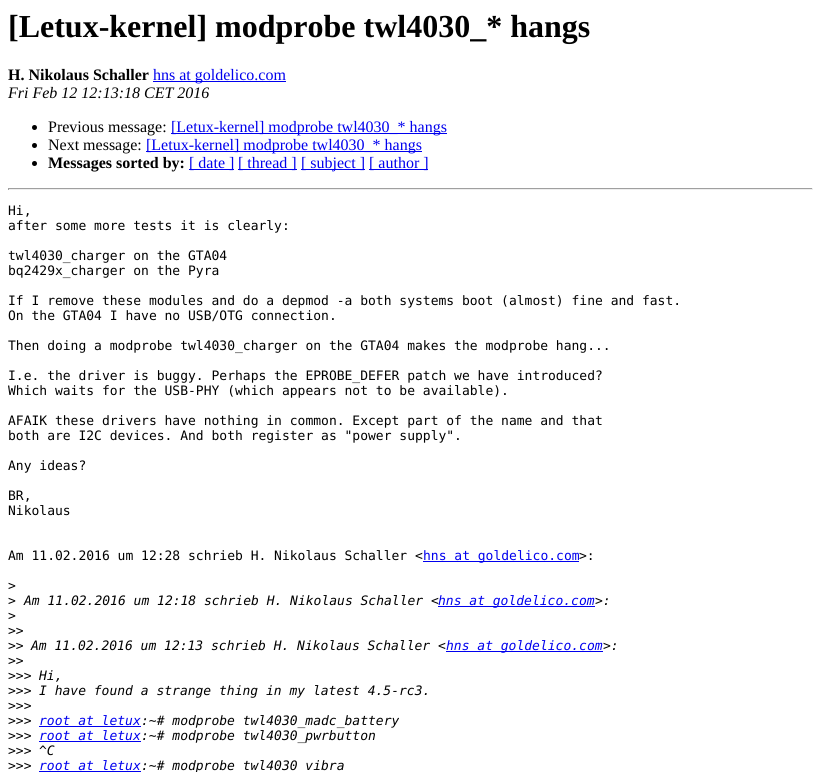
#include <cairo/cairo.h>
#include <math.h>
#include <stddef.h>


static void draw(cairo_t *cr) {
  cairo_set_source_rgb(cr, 1, 1, 1);
  cairo_paint(cr);
  cairo_set_source_rgb(cr, 0, 0, 238 / 255.0);
  cairo_rectangle(cr, 153, 81, 133, 1);
  cairo_fill(cr);
  cairo_set_source_rgb(cr, 0, 0, 0);
  cairo_arc(cr, 34.5, 127.5, 2.5, 0, 2 * M_PI);
  cairo_fill(cr);
  cairo_set_source_rgb(cr, 0, 0, 238 / 255.0);
  cairo_rectangle(cr, 171, 133, 276, 1);
  cairo_fill(cr);
  cairo_set_source_rgb(cr, 0, 0, 0);
  cairo_arc(cr, 34.5, 145.5, 2.5, 0, 2 * M_PI);
  cairo_fill(cr);
  cairo_set_source_rgb(cr, 0, 0, 238 / 255.0);
  cairo_rectangle(cr, 146, 151, 276, 1);
  cairo_fill(cr);
  cairo_set_source_rgb(cr, 0, 0, 0);
  cairo_arc(cr, 34.5, 163.5, 2.5, 0, 2 * M_PI);
  cairo_fill(cr);
  cairo_set_source_rgb(cr, 0, 0, 238 / 255.0);
  cairo_rectangle(cr, 189, 169, 45, 1);
  cairo_fill(cr);
  cairo_rectangle(cr, 238, 169, 59, 1);
  cairo_fill(cr);
  cairo_rectangle(cr, 301, 169, 64, 1);
  cairo_fill(cr);
  cairo_rectangle(cr, 369, 169, 59, 1);
  cairo_fill(cr);
  cairo_set_source_rgb(cr, 159 / 255.0, 159 / 255.0, 159 / 255.0);
  cairo_rectangle(cr, 8, 188, 805, 1);
  cairo_fill(cr);
  cairo_set_source_rgb(cr, 238 / 255.0, 238 / 255.0, 238 / 255.0);
  cairo_rectangle(cr, 812, 188, 1, 2);
  cairo_fill(cr);
  cairo_rectangle(cr, 8, 189, 805, 1);
  cairo_fill(cr);
  cairo_set_source_rgb(cr, 159 / 255.0, 159 / 255.0, 159 / 255.0);
  cairo_rectangle(cr, 8, 188, 1, 2);
  cairo_fill(cr);
  cairo_set_source_rgb(cr, 0, 0, 238 / 255.0);
  cairo_rectangle(cr, 423, 561, 156, 1);
  cairo_fill(cr);
  cairo_rectangle(cr, 438, 606, 157, 1);
  cairo_fill(cr);
  cairo_rectangle(cr, 446, 651, 157, 1);
  cairo_fill(cr);
  cairo_rectangle(cr, 39, 726, 102, 1);
  cairo_fill(cr);
  cairo_rectangle(cr, 39, 741, 102, 1);
  cairo_fill(cr);
  cairo_rectangle(cr, 39, 771, 102, 1);
  cairo_fill(cr);
  cairo_select_font_face(cr, "Liberation Serif", CAIRO_FONT_SLANT_NORMAL, CAIRO_FONT_WEIGHT_BOLD);
  cairo_set_font_size(cr, 32);
  cairo_set_source_rgb(cr, 0, 0, 0);
  cairo_move_to(cr, 8, 37);
  cairo_show_text(cr, "[Letux-kernel] modprobe twl4030_* hangs");
  cairo_set_font_size(cr, 16);
  cairo_move_to(cr, 8, 80);
  cairo_show_text(cr, "H. Nikolaus Schaller");
  cairo_select_font_face(cr, "Liberation Serif", CAIRO_FONT_SLANT_NORMAL, CAIRO_FONT_WEIGHT_NORMAL);
  cairo_set_source_rgb(cr, 0, 0, 238 / 255.0);
  cairo_move_to(cr, 153, 80);
  cairo_show_text(cr, "hns at goldelico.com");
  cairo_select_font_face(cr, "Liberation Serif", CAIRO_FONT_SLANT_ITALIC, CAIRO_FONT_WEIGHT_NORMAL);
  cairo_set_source_rgb(cr, 0, 0, 0);
  cairo_move_to(cr, 8, 98);
  cairo_show_text(cr, "Fri Feb 12 12:13:18 CET 2016");
  cairo_select_font_face(cr, "Liberation Serif", CAIRO_FONT_SLANT_NORMAL, CAIRO_FONT_WEIGHT_NORMAL);
  cairo_move_to(cr, 48, 132);
  cairo_show_text(cr, "Previous message:");
  cairo_set_source_rgb(cr, 0, 0, 238 / 255.0);
  cairo_move_to(cr, 171, 132);
  cairo_show_text(cr, "[Letux-kernel] modprobe twl4030_* hangs");
  cairo_set_source_rgb(cr, 0, 0, 0);
  cairo_move_to(cr, 48, 150);
  cairo_show_text(cr, "Next message:");
  cairo_set_source_rgb(cr, 0, 0, 238 / 255.0);
  cairo_move_to(cr, 146, 150);
  cairo_show_text(cr, "[Letux-kernel] modprobe twl4030_* hangs");
  cairo_select_font_face(cr, "Liberation Serif", CAIRO_FONT_SLANT_NORMAL, CAIRO_FONT_WEIGHT_BOLD);
  cairo_set_source_rgb(cr, 0, 0, 0);
  cairo_move_to(cr, 48, 168);
  cairo_show_text(cr, "Messages sorted by:");
  cairo_select_font_face(cr, "Liberation Serif", CAIRO_FONT_SLANT_NORMAL, CAIRO_FONT_WEIGHT_NORMAL);
  cairo_set_source_rgb(cr, 0, 0, 238 / 255.0);
  cairo_move_to(cr, 189, 168);
  cairo_show_text(cr, "[ date ]");
  cairo_move_to(cr, 238, 168);
  cairo_show_text(cr, "[ thread ]");
  cairo_move_to(cr, 301, 168);
  cairo_show_text(cr, "[ subject ]");
  cairo_move_to(cr, 369, 168);
  cairo_show_text(cr, "[ author ]");
  cairo_select_font_face(cr, "DejaVu Sans Mono", CAIRO_FONT_SLANT_NORMAL, CAIRO_FONT_WEIGHT_NORMAL);
  cairo_set_font_size(cr, 13);
  cairo_set_source_rgb(cr, 0, 0, 0);
  cairo_move_to(cr, 8, 215);
  cairo_show_text(cr, "Hi,");
  cairo_move_to(cr, 8, 230);
  cairo_show_text(cr, "after some more tests it is clearly:");
  cairo_move_to(cr, 8, 260);
  cairo_show_text(cr, "twl4030_charger on the GTA04");
  cairo_move_to(cr, 8, 275);
  cairo_show_text(cr, "bq2429x_charger on the Pyra");
  cairo_move_to(cr, 8, 305);
  cairo_show_text(cr, "If I remove these modules and do a depmod -a both systems boot (almost) fine and fast.");
  cairo_move_to(cr, 8, 320);
  cairo_show_text(cr, "On the GTA04 I have no USB/OTG connection.");
  cairo_move_to(cr, 8, 350);
  cairo_show_text(cr, "Then doing a modprobe twl4030_charger on the GTA04 makes the modprobe hang...");
  cairo_move_to(cr, 8, 380);
  cairo_show_text(cr, "I.e. the driver is buggy. Perhaps the EPROBE_DEFER patch we have introduced?");
  cairo_move_to(cr, 8, 395);
  cairo_show_text(cr, "Which waits for the USB-PHY (which appears not to be available).");
  cairo_move_to(cr, 8, 425);
  cairo_show_text(cr, "AFAIK these drivers have nothing in common. Except part of the name and that");
  cairo_move_to(cr, 8, 440);
  cairo_show_text(cr, "both are I2C devices. And both register as \"power supply\".");
  cairo_move_to(cr, 8, 470);
  cairo_show_text(cr, "Any ideas?");
  cairo_move_to(cr, 8, 500);
  cairo_show_text(cr, "BR,");
  cairo_move_to(cr, 8, 515);
  cairo_show_text(cr, "Nikolaus");
  cairo_move_to(cr, 8, 560);
  cairo_show_text(cr, "Am 11.02.2016 um 12:28 schrieb H. Nikolaus Schaller <");
  cairo_set_source_rgb(cr, 0, 0, 238 / 255.0);
  cairo_move_to(cr, 423, 560);
  cairo_show_text(cr, "hns at goldelico.com");
  cairo_set_source_rgb(cr, 0, 0, 0);
  cairo_move_to(cr, 579, 560);
  cairo_show_text(cr, ">:");
  cairo_move_to(cr, 8, 590);
  cairo_show_text(cr, ">");
  cairo_move_to(cr, 8, 605);
  cairo_show_text(cr, ">");
  cairo_select_font_face(cr, "DejaVu Sans Mono", CAIRO_FONT_SLANT_ITALIC, CAIRO_FONT_WEIGHT_NORMAL);
  cairo_move_to(cr, 24, 605);
  cairo_show_text(cr, "Am 11.02.2016 um 12:18 schrieb H. Nikolaus Schaller <");
  cairo_set_source_rgb(cr, 0, 0, 238 / 255.0);
  cairo_move_to(cr, 438, 605);
  cairo_show_text(cr, "hns at goldelico.com");
  cairo_set_source_rgb(cr, 0, 0, 0);
  cairo_move_to(cr, 595, 605);
  cairo_show_text(cr, ">:");
  cairo_select_font_face(cr, "DejaVu Sans Mono", CAIRO_FONT_SLANT_NORMAL, CAIRO_FONT_WEIGHT_NORMAL);
  cairo_move_to(cr, 8, 620);
  cairo_show_text(cr, ">");
  cairo_move_to(cr, 8, 635);
  cairo_show_text(cr, ">>");
  cairo_move_to(cr, 8, 650);
  cairo_show_text(cr, ">>");
  cairo_select_font_face(cr, "DejaVu Sans Mono", CAIRO_FONT_SLANT_ITALIC, CAIRO_FONT_WEIGHT_NORMAL);
  cairo_move_to(cr, 31, 650);
  cairo_show_text(cr, "Am 11.02.2016 um 12:13 schrieb H. Nikolaus Schaller <");
  cairo_set_source_rgb(cr, 0, 0, 238 / 255.0);
  cairo_move_to(cr, 446, 650);
  cairo_show_text(cr, "hns at goldelico.com");
  cairo_set_source_rgb(cr, 0, 0, 0);
  cairo_move_to(cr, 603, 650);
  cairo_show_text(cr, ">:");
  cairo_select_font_face(cr, "DejaVu Sans Mono", CAIRO_FONT_SLANT_NORMAL, CAIRO_FONT_WEIGHT_NORMAL);
  cairo_move_to(cr, 8, 665);
  cairo_show_text(cr, ">>");
  cairo_move_to(cr, 8, 680);
  cairo_show_text(cr, ">>>");
  cairo_select_font_face(cr, "DejaVu Sans Mono", CAIRO_FONT_SLANT_ITALIC, CAIRO_FONT_WEIGHT_NORMAL);
  cairo_move_to(cr, 39, 680);
  cairo_show_text(cr, "Hi,");
  cairo_select_font_face(cr, "DejaVu Sans Mono", CAIRO_FONT_SLANT_NORMAL, CAIRO_FONT_WEIGHT_NORMAL);
  cairo_move_to(cr, 8, 695);
  cairo_show_text(cr, ">>>");
  cairo_select_font_face(cr, "DejaVu Sans Mono", CAIRO_FONT_SLANT_ITALIC, CAIRO_FONT_WEIGHT_NORMAL);
  cairo_move_to(cr, 39, 695);
  cairo_show_text(cr, "I have found a strange thing in my latest 4.5-rc3.");
  cairo_select_font_face(cr, "DejaVu Sans Mono", CAIRO_FONT_SLANT_NORMAL, CAIRO_FONT_WEIGHT_NORMAL);
  cairo_move_to(cr, 8, 710);
  cairo_show_text(cr, ">>>");
  cairo_move_to(cr, 8, 725);
  cairo_show_text(cr, ">>>");
  cairo_select_font_face(cr, "DejaVu Sans Mono", CAIRO_FONT_SLANT_ITALIC, CAIRO_FONT_WEIGHT_NORMAL);
  cairo_set_source_rgb(cr, 0, 0, 238 / 255.0);
  cairo_move_to(cr, 39, 725);
  cairo_show_text(cr, "root at letux");
  cairo_set_source_rgb(cr, 0, 0, 0);
  cairo_move_to(cr, 141, 725);
  cairo_show_text(cr, ":~# modprobe twl4030_madc_battery");
  cairo_select_font_face(cr, "DejaVu Sans Mono", CAIRO_FONT_SLANT_NORMAL, CAIRO_FONT_WEIGHT_NORMAL);
  cairo_move_to(cr, 8, 740);
  cairo_show_text(cr, ">>>");
  cairo_select_font_face(cr, "DejaVu Sans Mono", CAIRO_FONT_SLANT_ITALIC, CAIRO_FONT_WEIGHT_NORMAL);
  cairo_set_source_rgb(cr, 0, 0, 238 / 255.0);
  cairo_move_to(cr, 39, 740);
  cairo_show_text(cr, "root at letux");
  cairo_set_source_rgb(cr, 0, 0, 0);
  cairo_move_to(cr, 141, 740);
  cairo_show_text(cr, ":~# modprobe twl4030_pwrbutton");
  cairo_select_font_face(cr, "DejaVu Sans Mono", CAIRO_FONT_SLANT_NORMAL, CAIRO_FONT_WEIGHT_NORMAL);
  cairo_move_to(cr, 8, 755);
  cairo_show_text(cr, ">>>");
  cairo_select_font_face(cr, "DejaVu Sans Mono", CAIRO_FONT_SLANT_ITALIC, CAIRO_FONT_WEIGHT_NORMAL);
  cairo_move_to(cr, 39, 755);
  cairo_show_text(cr, "^C");
  cairo_select_font_face(cr, "DejaVu Sans Mono", CAIRO_FONT_SLANT_NORMAL, CAIRO_FONT_WEIGHT_NORMAL);
  cairo_move_to(cr, 8, 770);
  cairo_show_text(cr, ">>>");
  cairo_select_font_face(cr, "DejaVu Sans Mono", CAIRO_FONT_SLANT_ITALIC, CAIRO_FONT_WEIGHT_NORMAL);
  cairo_set_source_rgb(cr, 0, 0, 238 / 255.0);
  cairo_move_to(cr, 39, 770);
  cairo_show_text(cr, "root at letux");
  cairo_set_source_rgb(cr, 0, 0, 0);
  cairo_move_to(cr, 141, 770);
  cairo_show_text(cr, ":~# modprobe twl4030_vibra");
}

int main(void) {
  cairo_surface_t *surface = cairo_image_surface_create(CAIRO_FORMAT_RGB24, 821, 772);
  cairo_t *cr = cairo_create(surface);
  cairo_font_options_t *options = cairo_font_options_create();
  cairo_font_options_set_hint_metrics(options, CAIRO_HINT_METRICS_OFF);
  cairo_font_options_set_hint_style(options, CAIRO_HINT_STYLE_NONE);
  cairo_set_font_options(cr, options);
  cairo_set_miter_limit(cr, 4);
  draw(cr);
  cairo_surface_write_to_png(surface, "out.png");
  cairo_font_options_destroy(options);
  cairo_destroy(cr);
  cairo_surface_destroy(surface);
  return 0;
}
